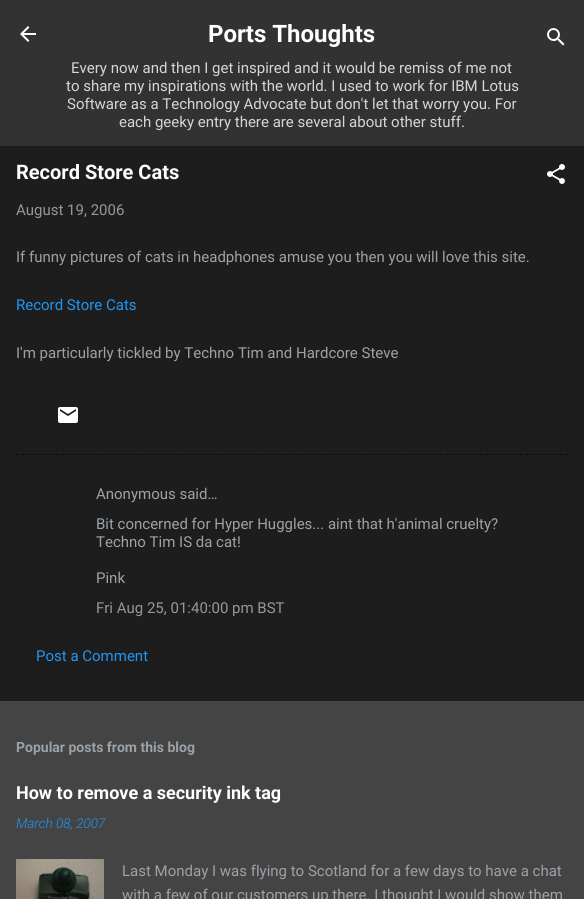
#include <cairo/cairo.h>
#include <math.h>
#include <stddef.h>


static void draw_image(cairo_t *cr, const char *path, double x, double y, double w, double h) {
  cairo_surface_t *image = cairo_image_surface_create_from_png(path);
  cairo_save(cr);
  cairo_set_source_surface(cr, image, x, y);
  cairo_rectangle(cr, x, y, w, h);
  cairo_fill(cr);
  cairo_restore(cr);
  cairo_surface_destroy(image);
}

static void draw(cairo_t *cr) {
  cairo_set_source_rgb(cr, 68 / 255.0, 68 / 255.0, 68 / 255.0);
  cairo_paint(cr);
  cairo_set_source_rgb(cr, 50 / 255.0, 50 / 255.0, 50 / 255.0);
  cairo_rectangle(cr, 0, 0, 584, 146);
  cairo_fill(cr);
  draw_image(cr, "images/1.png", 20, 26, 16, 16);
  draw_image(cr, "images/2.png", 547, 28, 18, 18);
  cairo_set_source_rgb(cr, 29 / 255.0, 29 / 255.0, 29 / 255.0);
  cairo_rectangle(cr, 0, 146, 584, 555);
  cairo_fill(cr);
  draw_image(cr, "images/3.png", 547, 164, 18, 20);
  draw_image(cr, "images/4.png", 58, 407, 20, 16);
  cairo_new_path(cr);
  cairo_move_to(cr, 16, 454.5);
  cairo_line_to(cr, 568, 454.5);
  cairo_set_source_rgb(cr, 13 / 255.0, 13 / 255.0, 13 / 255.0);
  cairo_set_line_width(cr, 1);
  cairo_set_dash(cr, (double[]){3, 1.99}, 2, 0);
  cairo_stroke(cr);
  draw_image(cr, "images/5.png", 16, 859, 88, 40);
  cairo_select_font_face(cr, "Roboto", CAIRO_FONT_SLANT_NORMAL, CAIRO_FONT_WEIGHT_BOLD);
  cairo_set_font_size(cr, 24);
  cairo_set_source_rgb(cr, 1, 1, 1);
  cairo_move_to(cr, 208, 42);
  cairo_show_text(cr, "Ports Thoughts");
  cairo_select_font_face(cr, "Roboto", CAIRO_FONT_SLANT_NORMAL, CAIRO_FONT_WEIGHT_NORMAL);
  cairo_set_font_size(cr, 15);
  cairo_set_source_rgb(cr, 214 / 255.0, 214 / 255.0, 214 / 255.0);
  cairo_move_to(cr, 71, 73);
  cairo_show_text(cr, "Every now and then I get inspired and it would be remiss of me not");
  cairo_move_to(cr, 66, 91);
  cairo_show_text(cr, "to share my inspirations with the world. I used to work for IBM Lotus");
  cairo_move_to(cr, 67, 109);
  cairo_show_text(cr, "Software as a Technology Advocate but don't let that worry you. For");
  cairo_move_to(cr, 119, 127);
  cairo_show_text(cr, "each geeky entry there are several about other stuff.");
  cairo_select_font_face(cr, "Roboto", CAIRO_FONT_SLANT_NORMAL, CAIRO_FONT_WEIGHT_BOLD);
  cairo_set_font_size(cr, 20);
  cairo_set_source_rgb(cr, 1, 1, 1);
  cairo_move_to(cr, 16, 179);
  cairo_show_text(cr, "Record Store Cats");
  cairo_select_font_face(cr, "Roboto", CAIRO_FONT_SLANT_NORMAL, CAIRO_FONT_WEIGHT_NORMAL);
  cairo_set_font_size(cr, 15);
  cairo_set_source_rgb(cr, 151 / 255.0, 151 / 255.0, 151 / 255.0);
  cairo_move_to(cr, 16, 215);
  cairo_show_text(cr, "August 19, 2006");
  cairo_set_source_rgb(cr, 155 / 255.0, 162 / 255.0, 168 / 255.0);
  cairo_move_to(cr, 16, 262);
  cairo_show_text(cr, "If funny pictures of cats in headphones amuse you then you will love this site.");
  cairo_set_source_rgb(cr, 33 / 255.0, 150 / 255.0, 243 / 255.0);
  cairo_move_to(cr, 16, 310);
  cairo_show_text(cr, "Record Store Cats");
  cairo_set_source_rgb(cr, 155 / 255.0, 162 / 255.0, 168 / 255.0);
  cairo_move_to(cr, 16, 358);
  cairo_show_text(cr, "I'm particularly tickled by Techno Tim and Hardcore Steve");
  cairo_move_to(cr, 96, 499);
  cairo_show_text(cr, "Anonymous said…");
  cairo_move_to(cr, 96, 529);
  cairo_show_text(cr, "Bit concerned for Hyper Huggles... aint that h'animal cruelty?");
  cairo_move_to(cr, 96, 547);
  cairo_show_text(cr, "Techno Tim IS da cat!");
  cairo_move_to(cr, 96, 583);
  cairo_show_text(cr, "Pink");
  cairo_set_source_rgb(cr, 151 / 255.0, 151 / 255.0, 151 / 255.0);
  cairo_move_to(cr, 96, 613);
  cairo_show_text(cr, "Fri Aug 25, 01:40:00 pm BST");
  cairo_set_source_rgb(cr, 33 / 255.0, 150 / 255.0, 243 / 255.0);
  cairo_move_to(cr, 36, 661);
  cairo_show_text(cr, "Post a Comment");
  cairo_select_font_face(cr, "Roboto", CAIRO_FONT_SLANT_NORMAL, CAIRO_FONT_WEIGHT_BOLD);
  cairo_set_font_size(cr, 14);
  cairo_set_source_rgb(cr, 155 / 255.0, 162 / 255.0, 168 / 255.0);
  cairo_move_to(cr, 16, 752);
  cairo_show_text(cr, "Popular posts from this blog");
  cairo_set_font_size(cr, 18);
  cairo_set_source_rgb(cr, 1, 1, 1);
  cairo_move_to(cr, 16, 799);
  cairo_show_text(cr, "How to remove a security ink tag");
  cairo_select_font_face(cr, "Roboto Light", CAIRO_FONT_SLANT_ITALIC, CAIRO_FONT_WEIGHT_NORMAL);
  cairo_set_font_size(cr, 13.5);
  cairo_set_source_rgb(cr, 33 / 255.0, 150 / 255.0, 243 / 255.0);
  cairo_move_to(cr, 16, 828);
  cairo_show_text(cr, "March 08, 2007");
  cairo_select_font_face(cr, "Roboto", CAIRO_FONT_SLANT_NORMAL, CAIRO_FONT_WEIGHT_NORMAL);
  cairo_set_font_size(cr, 15);
  cairo_set_source_rgb(cr, 155 / 255.0, 162 / 255.0, 168 / 255.0);
  cairo_move_to(cr, 122, 876);
  cairo_show_text(cr, "Last Monday I was flying to Scotland for a few days to have a chat");
  cairo_move_to(cr, 122, 900);
  cairo_show_text(cr, "with a few of our customers up there. I thought I would show them");
}

int main(void) {
  cairo_surface_t *surface = cairo_image_surface_create(CAIRO_FORMAT_RGB24, 584, 899);
  cairo_t *cr = cairo_create(surface);
  cairo_font_options_t *options = cairo_font_options_create();
  cairo_font_options_set_hint_metrics(options, CAIRO_HINT_METRICS_OFF);
  cairo_font_options_set_hint_style(options, CAIRO_HINT_STYLE_NONE);
  cairo_set_font_options(cr, options);
  cairo_set_miter_limit(cr, 4);
  draw(cr);
  cairo_surface_write_to_png(surface, "out.png");
  cairo_font_options_destroy(options);
  cairo_destroy(cr);
  cairo_surface_destroy(surface);
  return 0;
}
